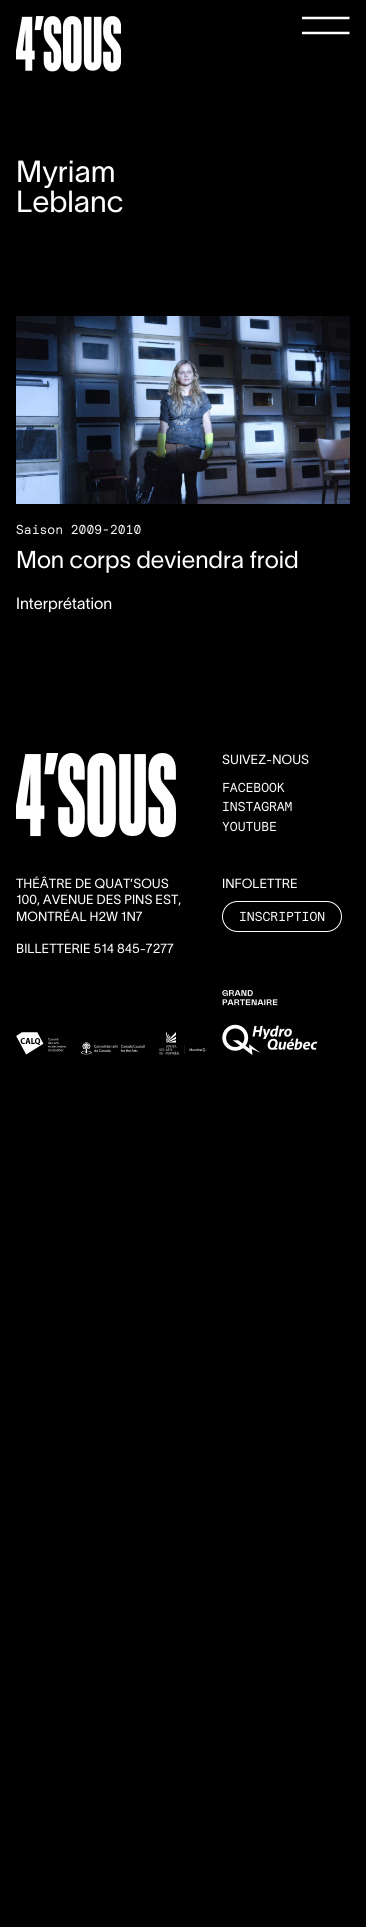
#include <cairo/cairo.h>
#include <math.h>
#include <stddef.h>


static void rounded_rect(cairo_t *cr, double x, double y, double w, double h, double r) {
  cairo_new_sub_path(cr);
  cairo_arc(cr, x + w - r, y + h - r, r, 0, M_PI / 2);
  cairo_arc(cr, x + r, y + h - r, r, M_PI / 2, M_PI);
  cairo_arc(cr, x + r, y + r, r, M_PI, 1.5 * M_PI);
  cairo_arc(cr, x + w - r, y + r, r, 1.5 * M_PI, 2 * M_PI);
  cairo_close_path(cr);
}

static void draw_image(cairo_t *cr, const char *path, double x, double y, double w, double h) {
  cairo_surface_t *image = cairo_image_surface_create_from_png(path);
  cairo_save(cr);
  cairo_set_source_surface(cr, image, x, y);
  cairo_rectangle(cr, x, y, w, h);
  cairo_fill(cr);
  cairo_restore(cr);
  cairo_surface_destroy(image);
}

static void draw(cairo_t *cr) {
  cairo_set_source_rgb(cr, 0, 0, 0);
  cairo_paint(cr);
  draw_image(cr, "images/1.png", 16, 16, 105, 56);
  cairo_new_path(cr);
  cairo_move_to(cr, 302, 18);
  cairo_line_to(cr, 349.5, 18);
  cairo_move_to(cr, 302, 33);
  cairo_line_to(cr, 349.5, 33);
  cairo_set_source_rgb(cr, 1, 1, 1);
  cairo_set_line_width(cr, 2.5);
  cairo_stroke(cr);
  draw_image(cr, "images/2.png", 16, 316, 334, 188);
  draw_image(cr, "images/3.png", 16, 753, 160, 85);
  rounded_rect(cr, 222.5, 901.5, 119, 30, 15);
  cairo_set_line_width(cr, 1);
  cairo_stroke(cr);
  draw_image(cr, "images/4.png", 16, 1032, 190, 23);
  draw_image(cr, "images/5.png", 222, 990, 96, 65);
  cairo_select_font_face(cr, "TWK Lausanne", CAIRO_FONT_SLANT_NORMAL, CAIRO_FONT_WEIGHT_NORMAL);
  cairo_set_font_size(cr, 30);
  cairo_move_to(cr, 16, 182);
  cairo_show_text(cr, "Myriam");
  cairo_move_to(cr, 16, 212);
  cairo_show_text(cr, "Leblanc");
  cairo_select_font_face(cr, "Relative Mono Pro", CAIRO_FONT_SLANT_NORMAL, CAIRO_FONT_WEIGHT_NORMAL);
  cairo_set_font_size(cr, 13);
  cairo_move_to(cr, 16, 534);
  cairo_show_text(cr, "Saison 2009-2010");
  cairo_select_font_face(cr, "TWK Lausanne", CAIRO_FONT_SLANT_NORMAL, CAIRO_FONT_WEIGHT_NORMAL);
  cairo_set_font_size(cr, 24);
  cairo_move_to(cr, 16, 568);
  cairo_show_text(cr, "Mon corps deviendra froid");
  cairo_set_font_size(cr, 16);
  cairo_move_to(cr, 16, 609);
  cairo_show_text(cr, "Interprétation");
  cairo_set_font_size(cr, 13);
  cairo_move_to(cr, 222, 764);
  cairo_show_text(cr, "SUIVEZ-NOUS");
  cairo_select_font_face(cr, "Relative Mono Pro", CAIRO_FONT_SLANT_NORMAL, CAIRO_FONT_WEIGHT_NORMAL);
  cairo_move_to(cr, 222, 792);
  cairo_show_text(cr, "FACEBOOK");
  cairo_move_to(cr, 222, 811);
  cairo_show_text(cr, "INSTAGRAM");
  cairo_move_to(cr, 222, 831);
  cairo_show_text(cr, "YOUTUBE");
  cairo_select_font_face(cr, "TWK Lausanne", CAIRO_FONT_SLANT_NORMAL, CAIRO_FONT_WEIGHT_NORMAL);
  cairo_move_to(cr, 16, 888);
  cairo_show_text(cr, "THÉÂTRE DE QUAT’SOUS");
  cairo_move_to(cr, 16, 904);
  cairo_show_text(cr, "100, AVENUE DES PINS EST,");
  cairo_move_to(cr, 16, 921);
  cairo_show_text(cr, "MONTRÉAL H2W 1N7");
  cairo_move_to(cr, 16, 953);
  cairo_show_text(cr, "BILLETTERIE 514 845-7277");
  cairo_move_to(cr, 222, 888);
  cairo_show_text(cr, "INFOLETTRE");
  cairo_select_font_face(cr, "Relative Mono Pro", CAIRO_FONT_SLANT_NORMAL, CAIRO_FONT_WEIGHT_NORMAL);
  cairo_move_to(cr, 239, 921);
  cairo_show_text(cr, "INSCRIPTION");
}

int main(void) {
  cairo_surface_t *surface = cairo_image_surface_create(CAIRO_FORMAT_RGB24, 366, 1927);
  cairo_t *cr = cairo_create(surface);
  cairo_font_options_t *options = cairo_font_options_create();
  cairo_font_options_set_hint_metrics(options, CAIRO_HINT_METRICS_OFF);
  cairo_font_options_set_hint_style(options, CAIRO_HINT_STYLE_NONE);
  cairo_set_font_options(cr, options);
  cairo_set_miter_limit(cr, 4);
  draw(cr);
  cairo_surface_write_to_png(surface, "out.png");
  cairo_font_options_destroy(options);
  cairo_destroy(cr);
  cairo_surface_destroy(surface);
  return 0;
}
